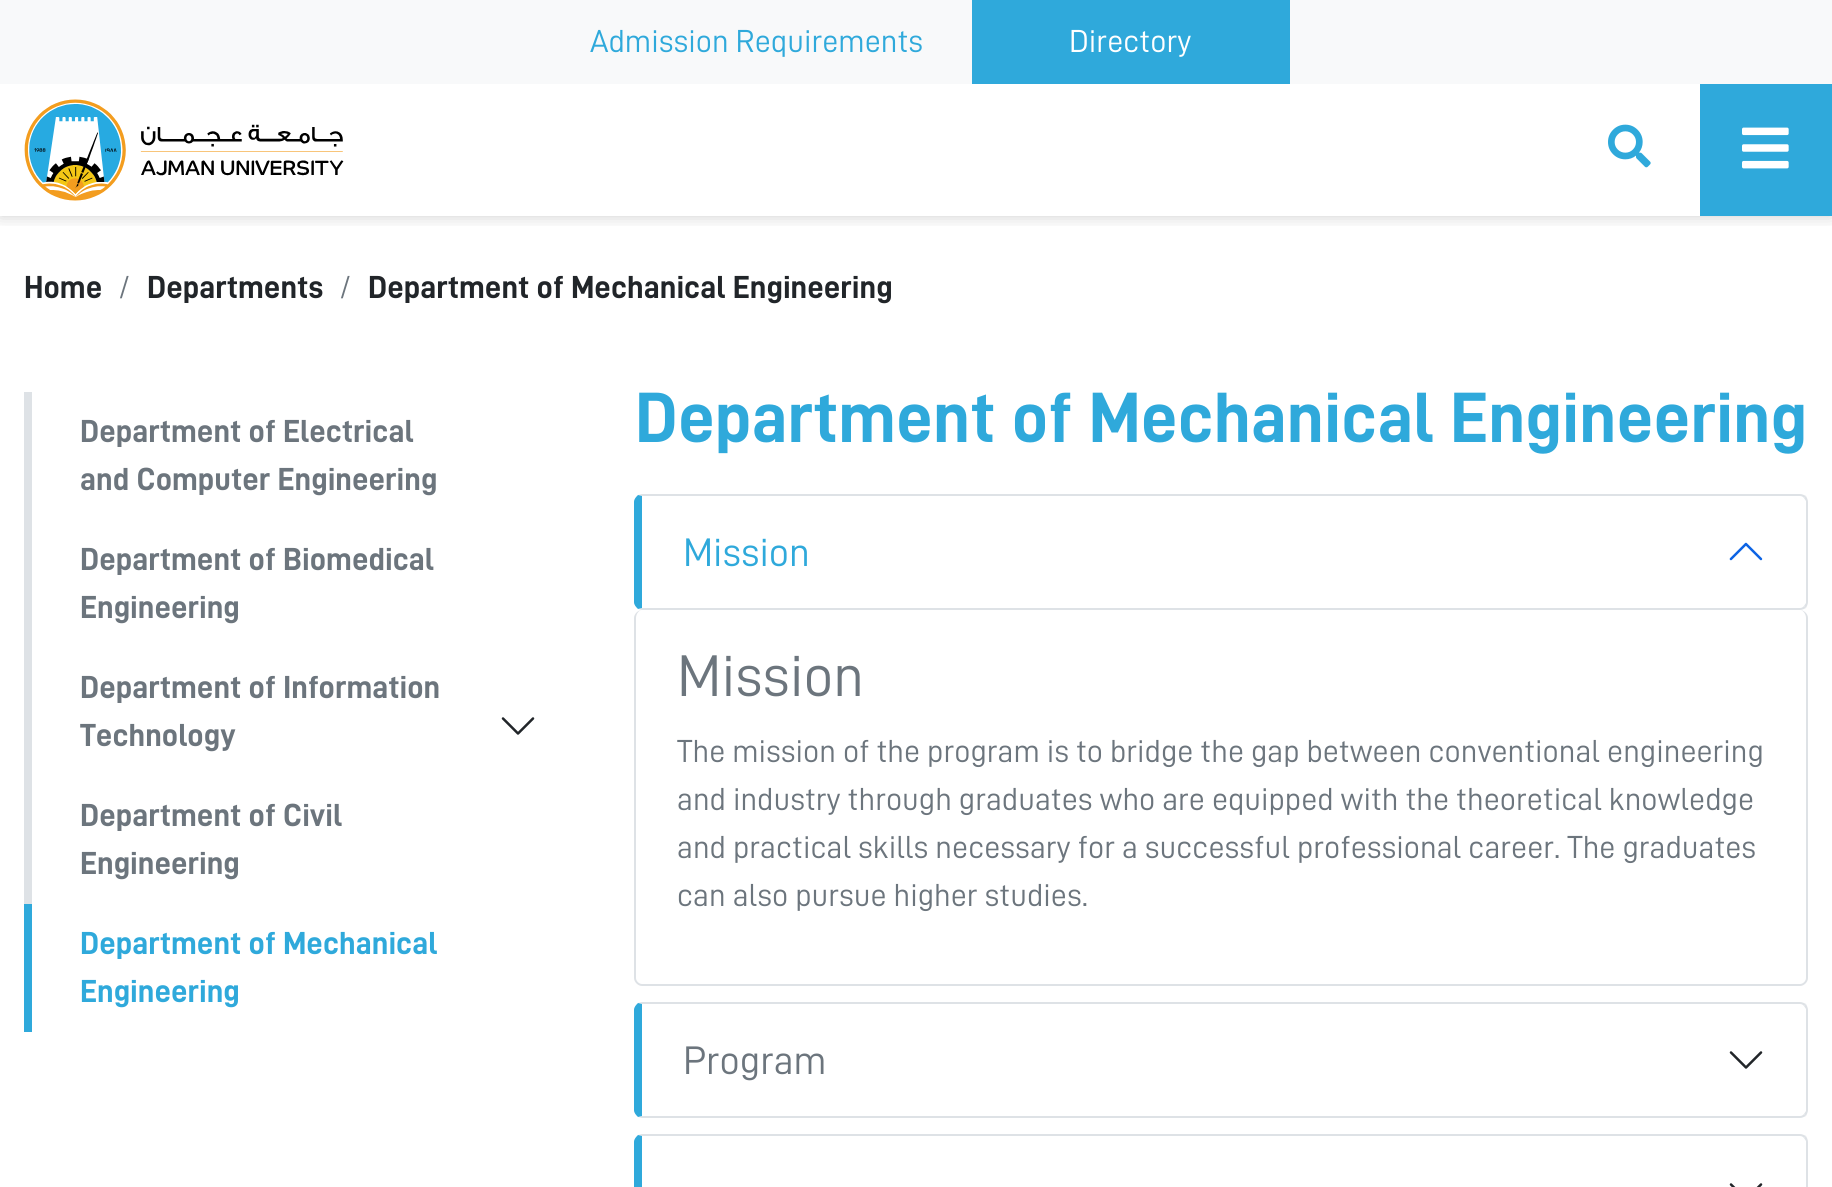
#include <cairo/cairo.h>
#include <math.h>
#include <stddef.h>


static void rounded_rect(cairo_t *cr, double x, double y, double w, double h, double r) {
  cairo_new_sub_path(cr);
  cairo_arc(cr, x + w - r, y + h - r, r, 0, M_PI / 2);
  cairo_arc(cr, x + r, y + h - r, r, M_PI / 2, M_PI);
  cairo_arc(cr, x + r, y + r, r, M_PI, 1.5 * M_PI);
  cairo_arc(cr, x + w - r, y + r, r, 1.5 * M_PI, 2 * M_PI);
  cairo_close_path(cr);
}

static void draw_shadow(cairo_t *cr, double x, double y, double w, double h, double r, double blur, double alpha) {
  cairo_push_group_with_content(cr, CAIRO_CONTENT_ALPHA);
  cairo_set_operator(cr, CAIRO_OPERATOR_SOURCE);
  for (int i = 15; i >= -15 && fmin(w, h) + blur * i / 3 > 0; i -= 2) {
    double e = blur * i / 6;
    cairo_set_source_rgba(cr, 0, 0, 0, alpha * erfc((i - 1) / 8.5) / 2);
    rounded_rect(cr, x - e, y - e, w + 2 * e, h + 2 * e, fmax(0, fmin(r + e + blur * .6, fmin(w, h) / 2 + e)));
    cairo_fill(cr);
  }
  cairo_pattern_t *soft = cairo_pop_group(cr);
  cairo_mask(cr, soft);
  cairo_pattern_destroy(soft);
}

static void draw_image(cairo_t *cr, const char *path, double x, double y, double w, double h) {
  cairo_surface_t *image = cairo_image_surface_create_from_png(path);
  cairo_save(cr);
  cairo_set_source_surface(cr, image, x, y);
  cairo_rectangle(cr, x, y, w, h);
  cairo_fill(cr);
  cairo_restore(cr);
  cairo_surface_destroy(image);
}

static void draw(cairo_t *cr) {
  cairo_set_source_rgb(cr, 1, 1, 1);
  cairo_paint(cr);
  cairo_save(cr);
  cairo_rectangle(cr, 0, 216, 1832, 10);
  cairo_clip(cr);
  cairo_set_source_rgb(cr, 0, 0, 0);
  draw_shadow(cr, 0, 84, 1832, 132, 0, 8, 0.2);
  cairo_restore(cr);
  cairo_set_source_rgb(cr, 248 / 255.0, 249 / 255.0, 250 / 255.0);
  cairo_rectangle(cr, 0, 0, 1832, 84);
  cairo_fill(cr);
  cairo_set_source_rgb(cr, 47 / 255.0, 169 / 255.0, 219 / 255.0);
  cairo_rectangle(cr, 972, 0, 318, 84);
  cairo_fill(cr);
  draw_image(cr, "images/1.png", 24, 99, 320, 102);
  draw_image(cr, "images/2.png", 1608, 124, 43, 44);
  cairo_rectangle(cr, 1700, 84, 132, 132);
  cairo_fill(cr);
  draw_image(cr, "images/3.png", 1742, 127, 47, 42);
  cairo_set_source_rgb(cr, 222 / 255.0, 226 / 255.0, 230 / 255.0);
  cairo_rectangle(cr, 24, 392, 8, 512);
  cairo_fill(cr);
  draw_image(cr, "images/4.png", 501, 717, 34, 18);
  cairo_set_source_rgb(cr, 47 / 255.0, 169 / 255.0, 219 / 255.0);
  cairo_rectangle(cr, 24, 904, 8, 128);
  cairo_fill(cr);
  cairo_set_source_rgb(cr, 222 / 255.0, 226 / 255.0, 230 / 255.0);
  cairo_new_path(cr);
  cairo_move_to(cr, 642, 494);
  cairo_line_to(cr, 638, 495);
  cairo_line_to(cr, 642, 496);
  cairo_line_to(cr, 1800, 496);
  cairo_curve_to(cr, 1802, 496, 1803, 497, 1804, 498);
  cairo_line_to(cr, 1806, 496);
  cairo_curve_to(cr, 1804, 495, 1802, 494, 1800, 494);
  cairo_close_path(cr);
  cairo_fill(cr);
  cairo_new_path(cr);
  cairo_move_to(cr, 1808, 602);
  cairo_line_to(cr, 1808, 502);
  cairo_curve_to(cr, 1808, 500, 1807, 498, 1806, 496);
  cairo_line_to(cr, 1804, 498);
  cairo_line_to(cr, 1806, 501);
  cairo_line_to(cr, 1806, 603);
  cairo_line_to(cr, 1804, 606);
  cairo_line_to(cr, 1806, 608);
  cairo_curve_to(cr, 1807, 606, 1808, 604, 1808, 602);
  cairo_close_path(cr);
  cairo_fill(cr);
  cairo_new_path(cr);
  cairo_move_to(cr, 642, 610);
  cairo_line_to(cr, 1800, 610);
  cairo_curve_to(cr, 1802, 610, 1804, 609, 1806, 608);
  cairo_line_to(cr, 1804, 606);
  cairo_curve_to(cr, 1803, 607, 1802, 608, 1800, 608);
  cairo_line_to(cr, 642, 608);
  cairo_line_to(cr, 638, 609);
  cairo_close_path(cr);
  cairo_fill(cr);
  cairo_set_source_rgb(cr, 47 / 255.0, 169 / 255.0, 219 / 255.0);
  cairo_new_path(cr);
  cairo_move_to(cr, 642, 496);
  cairo_line_to(cr, 638, 495);
  cairo_curve_to(cr, 636, 497, 634, 499, 634, 502);
  cairo_line_to(cr, 634, 602);
  cairo_curve_to(cr, 634, 605, 636, 607, 638, 609);
  cairo_line_to(cr, 642, 608);
  cairo_close_path(cr);
  cairo_fill(cr);
  draw_image(cr, "images/5.png", 1729, 542, 34, 19);
  cairo_set_source_rgb(cr, 222 / 255.0, 226 / 255.0, 230 / 255.0);
  cairo_set_fill_rule(cr, CAIRO_FILL_RULE_EVEN_ODD);
  cairo_new_path(cr);
  cairo_move_to(cr, 642, 610);
  cairo_line_to(cr, 1800, 610);
  cairo_curve_to(cr, 1804, 610, 1808, 614, 1808, 618);
  cairo_line_to(cr, 1808, 978);
  cairo_curve_to(cr, 1808, 982, 1804, 986, 1800, 986);
  cairo_line_to(cr, 642, 986);
  cairo_curve_to(cr, 638, 986, 634, 982, 634, 978);
  cairo_line_to(cr, 634, 618);
  cairo_curve_to(cr, 634, 614, 638, 610, 642, 610);
  cairo_close_path(cr);
  cairo_move_to(cr, 642, 610);
  cairo_line_to(cr, 1800, 610);
  cairo_curve_to(cr, 1803, 610, 1806, 614, 1806, 618);
  cairo_line_to(cr, 1806, 978);
  cairo_curve_to(cr, 1806, 981, 1803, 984, 1800, 984);
  cairo_line_to(cr, 642, 984);
  cairo_curve_to(cr, 639, 984, 636, 981, 636, 978);
  cairo_line_to(cr, 636, 618);
  cairo_curve_to(cr, 636, 614, 639, 610, 642, 610);
  cairo_close_path(cr);
  cairo_fill(cr);
  cairo_set_fill_rule(cr, CAIRO_FILL_RULE_WINDING);
  cairo_new_path(cr);
  cairo_move_to(cr, 642, 1002);
  cairo_line_to(cr, 638, 1003);
  cairo_line_to(cr, 642, 1004);
  cairo_line_to(cr, 1800, 1004);
  cairo_curve_to(cr, 1802, 1004, 1803, 1005, 1804, 1006);
  cairo_line_to(cr, 1806, 1004);
  cairo_curve_to(cr, 1804, 1003, 1802, 1002, 1800, 1002);
  cairo_close_path(cr);
  cairo_fill(cr);
  cairo_new_path(cr);
  cairo_move_to(cr, 1808, 1110);
  cairo_line_to(cr, 1808, 1010);
  cairo_curve_to(cr, 1808, 1008, 1807, 1006, 1806, 1004);
  cairo_line_to(cr, 1804, 1006);
  cairo_line_to(cr, 1806, 1009);
  cairo_line_to(cr, 1806, 1111);
  cairo_line_to(cr, 1804, 1114);
  cairo_line_to(cr, 1806, 1116);
  cairo_curve_to(cr, 1807, 1114, 1808, 1112, 1808, 1110);
  cairo_close_path(cr);
  cairo_fill(cr);
  cairo_new_path(cr);
  cairo_move_to(cr, 642, 1118);
  cairo_line_to(cr, 1800, 1118);
  cairo_curve_to(cr, 1802, 1118, 1804, 1117, 1806, 1116);
  cairo_line_to(cr, 1804, 1114);
  cairo_curve_to(cr, 1803, 1115, 1802, 1116, 1800, 1116);
  cairo_line_to(cr, 642, 1116);
  cairo_line_to(cr, 638, 1117);
  cairo_close_path(cr);
  cairo_fill(cr);
  cairo_set_source_rgb(cr, 47 / 255.0, 169 / 255.0, 219 / 255.0);
  cairo_new_path(cr);
  cairo_move_to(cr, 642, 1004);
  cairo_line_to(cr, 638, 1003);
  cairo_curve_to(cr, 636, 1005, 634, 1007, 634, 1010);
  cairo_line_to(cr, 634, 1110);
  cairo_curve_to(cr, 634, 1113, 636, 1115, 638, 1117);
  cairo_line_to(cr, 642, 1116);
  cairo_close_path(cr);
  cairo_fill(cr);
  draw_image(cr, "images/4.png", 1729, 1051, 34, 18);
  cairo_set_source_rgb(cr, 222 / 255.0, 226 / 255.0, 230 / 255.0);
  cairo_new_path(cr);
  cairo_move_to(cr, 642, 1134);
  cairo_line_to(cr, 638, 1135);
  cairo_line_to(cr, 642, 1136);
  cairo_line_to(cr, 1800, 1136);
  cairo_curve_to(cr, 1802, 1136, 1803, 1137, 1804, 1138);
  cairo_line_to(cr, 1806, 1136);
  cairo_curve_to(cr, 1804, 1135, 1802, 1134, 1800, 1134);
  cairo_close_path(cr);
  cairo_fill(cr);
  cairo_new_path(cr);
  cairo_move_to(cr, 1808, 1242);
  cairo_line_to(cr, 1808, 1142);
  cairo_curve_to(cr, 1808, 1140, 1807, 1138, 1806, 1136);
  cairo_line_to(cr, 1804, 1138);
  cairo_line_to(cr, 1806, 1141);
  cairo_line_to(cr, 1806, 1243);
  cairo_line_to(cr, 1804, 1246);
  cairo_line_to(cr, 1806, 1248);
  cairo_curve_to(cr, 1807, 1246, 1808, 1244, 1808, 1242);
  cairo_close_path(cr);
  cairo_fill(cr);
  cairo_set_source_rgb(cr, 47 / 255.0, 169 / 255.0, 219 / 255.0);
  cairo_new_path(cr);
  cairo_move_to(cr, 642, 1136);
  cairo_line_to(cr, 638, 1135);
  cairo_curve_to(cr, 636, 1137, 634, 1139, 634, 1142);
  cairo_line_to(cr, 634, 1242);
  cairo_curve_to(cr, 634, 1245, 636, 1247, 638, 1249);
  cairo_line_to(cr, 642, 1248);
  cairo_close_path(cr);
  cairo_fill(cr);
  draw_image(cr, "images/6.png", 1729, 1183, 34, 4);
  cairo_select_font_face(cr, "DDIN", CAIRO_FONT_SLANT_NORMAL, CAIRO_FONT_WEIGHT_NORMAL);
  cairo_set_font_size(cr, 32);
  cairo_move_to(cr, 590, 52);
  cairo_show_text(cr, "Admission Requirements");
  cairo_set_source_rgb(cr, 1, 1, 1);
  cairo_move_to(cr, 1069, 52);
  cairo_show_text(cr, "Directory");
  cairo_select_font_face(cr, "DDIN", CAIRO_FONT_SLANT_NORMAL, CAIRO_FONT_WEIGHT_BOLD);
  cairo_set_source_rgb(cr, 33 / 255.0, 37 / 255.0, 41 / 255.0);
  cairo_move_to(cr, 24, 298);
  cairo_show_text(cr, "Home");
  cairo_select_font_face(cr, "DDIN", CAIRO_FONT_SLANT_NORMAL, CAIRO_FONT_WEIGHT_NORMAL);
  cairo_set_source_rgb(cr, 108 / 255.0, 117 / 255.0, 125 / 255.0);
  cairo_move_to(cr, 118, 298);
  cairo_show_text(cr, "/");
  cairo_select_font_face(cr, "DDIN", CAIRO_FONT_SLANT_NORMAL, CAIRO_FONT_WEIGHT_BOLD);
  cairo_set_source_rgb(cr, 33 / 255.0, 37 / 255.0, 41 / 255.0);
  cairo_move_to(cr, 147, 298);
  cairo_show_text(cr, "Departments");
  cairo_select_font_face(cr, "DDIN", CAIRO_FONT_SLANT_NORMAL, CAIRO_FONT_WEIGHT_NORMAL);
  cairo_set_source_rgb(cr, 108 / 255.0, 117 / 255.0, 125 / 255.0);
  cairo_move_to(cr, 339, 298);
  cairo_show_text(cr, "/");
  cairo_select_font_face(cr, "DDIN", CAIRO_FONT_SLANT_NORMAL, CAIRO_FONT_WEIGHT_BOLD);
  cairo_set_source_rgb(cr, 33 / 255.0, 37 / 255.0, 41 / 255.0);
  cairo_move_to(cr, 368, 298);
  cairo_show_text(cr, "Department of Mechanical Engineering");
  cairo_set_source_rgb(cr, 108 / 255.0, 117 / 255.0, 125 / 255.0);
  cairo_move_to(cr, 80, 442);
  cairo_show_text(cr, "Department of Electrical");
  cairo_move_to(cr, 80, 490);
  cairo_show_text(cr, "and Computer Engineering");
  cairo_move_to(cr, 80, 570);
  cairo_show_text(cr, "Department of Biomedical");
  cairo_move_to(cr, 80, 618);
  cairo_show_text(cr, "Engineering");
  cairo_move_to(cr, 80, 698);
  cairo_show_text(cr, "Department of Information");
  cairo_move_to(cr, 80, 746);
  cairo_show_text(cr, "Technology");
  cairo_move_to(cr, 80, 826);
  cairo_show_text(cr, "Department of Civil");
  cairo_move_to(cr, 80, 874);
  cairo_show_text(cr, "Engineering");
  cairo_set_source_rgb(cr, 47 / 255.0, 169 / 255.0, 219 / 255.0);
  cairo_move_to(cr, 80, 954);
  cairo_show_text(cr, "Department of Mechanical");
  cairo_move_to(cr, 80, 1002);
  cairo_show_text(cr, "Engineering");
  cairo_set_font_size(cr, 71.5);
  cairo_move_to(cr, 635, 442);
  cairo_show_text(cr, "Department of Mechanical Engineering");
  cairo_select_font_face(cr, "DDIN", CAIRO_FONT_SLANT_NORMAL, CAIRO_FONT_WEIGHT_NORMAL);
  cairo_set_font_size(cr, 40);
  cairo_move_to(cr, 683, 566);
  cairo_show_text(cr, "Mission");
  cairo_set_font_size(cr, 59);
  cairo_set_source_rgb(cr, 108 / 255.0, 117 / 255.0, 125 / 255.0);
  cairo_move_to(cr, 677, 696);
  cairo_show_text(cr, "Mission");
  cairo_set_font_size(cr, 32);
  cairo_move_to(cr, 677, 762);
  cairo_show_text(cr, "The mission of the program is to bridge the gap between conventional engineering");
  cairo_move_to(cr, 677, 810);
  cairo_show_text(cr, "and industry through graduates who are equipped with the theoretical knowledge");
  cairo_move_to(cr, 677, 858);
  cairo_show_text(cr, "and practical skills necessary for a successful professional career. The graduates");
  cairo_move_to(cr, 677, 906);
  cairo_show_text(cr, "can also pursue higher studies.");
  cairo_set_font_size(cr, 40);
  cairo_move_to(cr, 683, 1074);
  cairo_show_text(cr, "Program");
}

int main(void) {
  cairo_surface_t *surface = cairo_image_surface_create(CAIRO_FORMAT_RGB24, 1832, 1187);
  cairo_t *cr = cairo_create(surface);
  cairo_font_options_t *options = cairo_font_options_create();
  cairo_font_options_set_hint_metrics(options, CAIRO_HINT_METRICS_OFF);
  cairo_font_options_set_hint_style(options, CAIRO_HINT_STYLE_NONE);
  cairo_set_font_options(cr, options);
  cairo_set_miter_limit(cr, 4);
  draw(cr);
  cairo_surface_write_to_png(surface, "out.png");
  cairo_font_options_destroy(options);
  cairo_destroy(cr);
  cairo_surface_destroy(surface);
  return 0;
}
